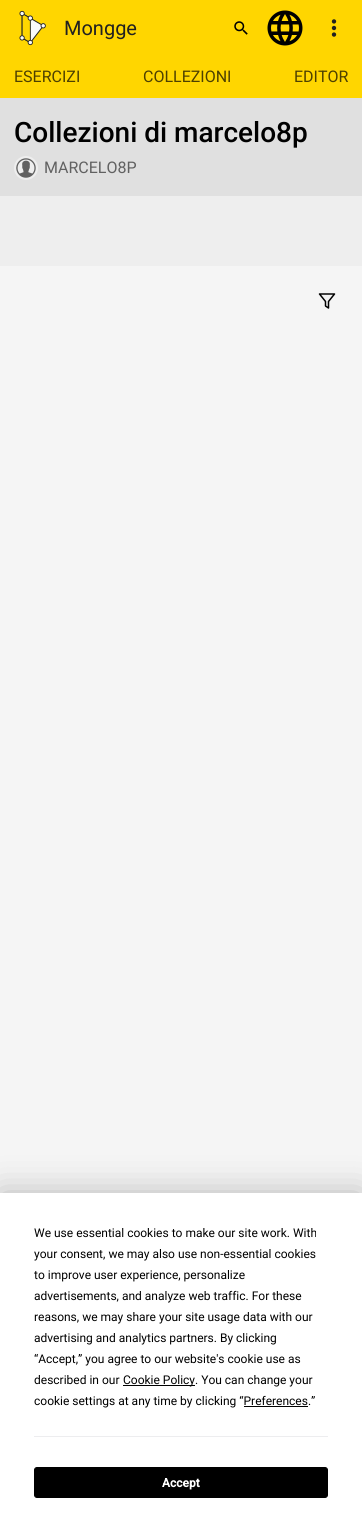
#include <cairo/cairo.h>
#include <math.h>
#include <stddef.h>


static void rounded_rect(cairo_t *cr, double x, double y, double w, double h, double r) {
  cairo_new_sub_path(cr);
  cairo_arc(cr, x + w - r, y + h - r, r, 0, M_PI / 2);
  cairo_arc(cr, x + r, y + h - r, r, M_PI / 2, M_PI);
  cairo_arc(cr, x + r, y + r, r, M_PI, 1.5 * M_PI);
  cairo_arc(cr, x + w - r, y + r, r, 1.5 * M_PI, 2 * M_PI);
  cairo_close_path(cr);
}

static void draw_shadow(cairo_t *cr, double x, double y, double w, double h, double r, double blur, double alpha) {
  cairo_push_group_with_content(cr, CAIRO_CONTENT_ALPHA);
  cairo_set_operator(cr, CAIRO_OPERATOR_SOURCE);
  for (int i = 15; i >= -15 && fmin(w, h) + blur * i / 3 > 0; i -= 2) {
    double e = blur * i / 6;
    cairo_set_source_rgba(cr, 0, 0, 0, alpha * erfc((i - 1) / 8.5) / 2);
    rounded_rect(cr, x - e, y - e, w + 2 * e, h + 2 * e, fmax(0, fmin(r + e + blur * .6, fmin(w, h) / 2 + e)));
    cairo_fill(cr);
  }
  cairo_pattern_t *soft = cairo_pop_group(cr);
  cairo_mask(cr, soft);
  cairo_pattern_destroy(soft);
}

static void draw_image(cairo_t *cr, const char *path, double x, double y, double w, double h) {
  cairo_surface_t *image = cairo_image_surface_create_from_png(path);
  cairo_save(cr);
  cairo_set_source_surface(cr, image, x, y);
  cairo_rectangle(cr, x, y, w, h);
  cairo_fill(cr);
  cairo_restore(cr);
  cairo_surface_destroy(image);
}

static void draw(cairo_t *cr) {
  cairo_set_source_rgb(cr, 245 / 255.0, 245 / 255.0, 245 / 255.0);
  cairo_paint(cr);
  cairo_set_source_rgb(cr, 1, 214 / 255.0, 0);
  cairo_rectangle(cr, 0, 0, 362, 98);
  cairo_fill(cr);
  draw_image(cr, "images/1.png", 19, 10, 27, 36);
  draw_image(cr, "images/2.png", 234, 21, 14, 14);
  draw_image(cr, "images/3.png", 267, 10, 36, 36);
  draw_image(cr, "images/4.png", 331, 19, 6, 18);
  cairo_set_source_rgb(cr, 224 / 255.0, 224 / 255.0, 224 / 255.0);
  cairo_rectangle(cr, 0, 98, 362, 98);
  cairo_fill(cr);
  cairo_set_source_rgb(cr, 238 / 255.0, 238 / 255.0, 238 / 255.0);
  cairo_arc(cr, 26, 168, 12, 0, 2 * M_PI);
  cairo_fill(cr);
  draw_image(cr, "images/5.png", 16, 158, 20, 20);
  cairo_rectangle(cr, 0, 196, 362, 70);
  cairo_fill(cr);
  cairo_new_path(cr);
  cairo_move_to(cr, 334.5, 294);
  cairo_line_to(cr, 319.5, 294);
  cairo_line_to(cr, 325.5, 301.5);
  cairo_line_to(cr, 325.5, 306);
  cairo_line_to(cr, 328.5, 308);
  cairo_line_to(cr, 328.5, 301.5);
  cairo_close_path(cr);
  cairo_set_source_rgb(cr, 0, 0, 0);
  cairo_set_line_width(cr, 1.5);
  cairo_set_line_cap(cr, CAIRO_LINE_CAP_ROUND);
  cairo_set_line_join(cr, CAIRO_LINE_JOIN_ROUND);
  cairo_stroke(cr);
  cairo_set_source_rgb(cr, 0, 0, 0);
  draw_shadow(cr, 0, 1193, 362, 335, 0, 17.5, 0.25);
  cairo_set_source_rgb(cr, 1, 1, 1);
  cairo_rectangle(cr, 0, 1193, 362, 335);
  cairo_fill(cr);
  cairo_set_source_rgb(cr, 0, 0, 0);
  cairo_rectangle(cr, 123, 1385, 72, 1);
  cairo_fill(cr);
  cairo_rectangle(cr, 244, 1406, 64, 1);
  cairo_fill(cr);
  cairo_set_source_rgb(cr, 237 / 255.0, 237 / 255.0, 239 / 255.0);
  cairo_rectangle(cr, 34, 1436, 294, 1);
  cairo_fill(cr);
  cairo_set_source_rgb(cr, 0, 0, 0);
  rounded_rect(cr, 34.5, 1467.5, 293, 30, 2.5);
  cairo_fill_preserve(cr);
  cairo_set_line_width(cr, 1);
  cairo_set_line_cap(cr, CAIRO_LINE_CAP_BUTT);
  cairo_set_line_join(cr, CAIRO_LINE_JOIN_MITER);
  cairo_stroke(cr);
  cairo_select_font_face(cr, "Roboto", CAIRO_FONT_SLANT_NORMAL, CAIRO_FONT_WEIGHT_NORMAL);
  cairo_set_font_size(cr, 20);
  cairo_set_source_rgb(cr, 33 / 255.0, 33 / 255.0, 33 / 255.0);
  cairo_move_to(cr, 64, 35);
  cairo_show_text(cr, "Mongge");
  cairo_set_font_size(cr, 16);
  cairo_set_source_rgb(cr, 77 / 255.0, 64 / 255.0, 0);
  cairo_move_to(cr, 14, 82);
  cairo_show_text(cr, "ESERCIZI");
  cairo_move_to(cr, 143, 82);
  cairo_show_text(cr, "COLLEZIONI");
  cairo_move_to(cr, 294, 82);
  cairo_show_text(cr, "EDITOR");
  cairo_select_font_face(cr, "Roboto Medium", CAIRO_FONT_SLANT_NORMAL, CAIRO_FONT_WEIGHT_NORMAL);
  cairo_set_font_size(cr, 28);
  cairo_set_source_rgb(cr, 0, 0, 0);
  cairo_move_to(cr, 14, 142);
  cairo_show_text(cr, "Collezioni di marcelo8p");
  cairo_select_font_face(cr, "Roboto", CAIRO_FONT_SLANT_NORMAL, CAIRO_FONT_WEIGHT_NORMAL);
  cairo_set_font_size(cr, 16);
  cairo_set_source_rgb(cr, 97 / 255.0, 97 / 255.0, 97 / 255.0);
  cairo_move_to(cr, 44, 173);
  cairo_show_text(cr, "MARCELO8P");
  cairo_set_font_size(cr, 12);
  cairo_set_source_rgb(cr, 0, 0, 0);
  cairo_move_to(cr, 34, 1237);
  cairo_show_text(cr, "We use essential cookies to make our site work. With");
  cairo_move_to(cr, 34, 1258);
  cairo_show_text(cr, "your consent, we may also use non-essential cookies");
  cairo_move_to(cr, 34, 1279);
  cairo_show_text(cr, "to improve user experience, personalize");
  cairo_move_to(cr, 34, 1300);
  cairo_show_text(cr, "advertisements, and analyze web traffic. For these");
  cairo_move_to(cr, 34, 1321);
  cairo_show_text(cr, "reasons, we may share your site usage data with our");
  cairo_move_to(cr, 34, 1342);
  cairo_show_text(cr, "advertising and analytics partners. By clicking");
  cairo_move_to(cr, 34, 1363);
  cairo_show_text(cr, "“Accept,” you agree to our website's cookie use as");
  cairo_move_to(cr, 34, 1384);
  cairo_show_text(cr, "described in our");
  cairo_move_to(cr, 123, 1384);
  cairo_show_text(cr, "Cookie Policy. You can change your");
  cairo_move_to(cr, 34, 1405);
  cairo_show_text(cr, "cookie settings at any time by clicking “Preferences.”");
  cairo_select_font_face(cr, "Roboto", CAIRO_FONT_SLANT_NORMAL, CAIRO_FONT_WEIGHT_BOLD);
  cairo_set_source_rgb(cr, 1, 1, 1);
  cairo_move_to(cr, 162, 1487);
  cairo_show_text(cr, "Accept");
}

int main(void) {
  cairo_surface_t *surface = cairo_image_surface_create(CAIRO_FORMAT_RGB24, 362, 1528);
  cairo_t *cr = cairo_create(surface);
  cairo_font_options_t *options = cairo_font_options_create();
  cairo_font_options_set_hint_metrics(options, CAIRO_HINT_METRICS_OFF);
  cairo_font_options_set_hint_style(options, CAIRO_HINT_STYLE_NONE);
  cairo_set_font_options(cr, options);
  cairo_set_miter_limit(cr, 4);
  draw(cr);
  cairo_surface_write_to_png(surface, "out.png");
  cairo_font_options_destroy(options);
  cairo_destroy(cr);
  cairo_surface_destroy(surface);
  return 0;
}
